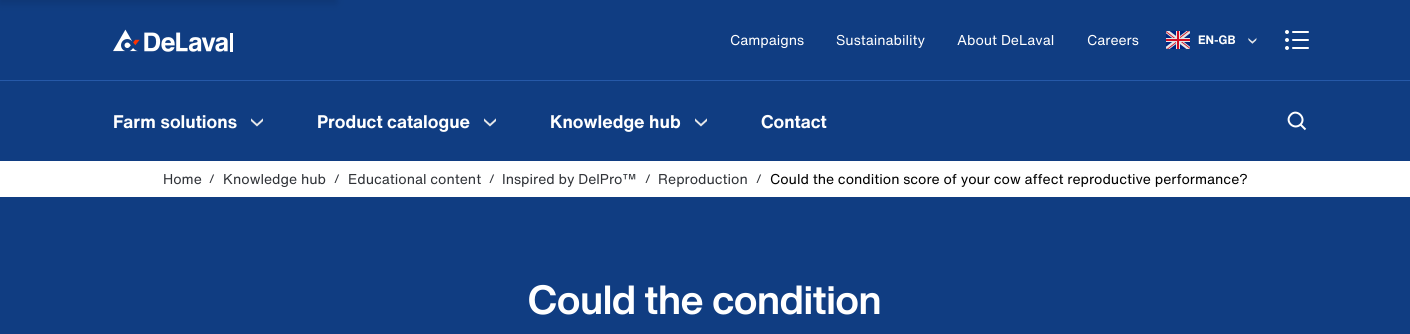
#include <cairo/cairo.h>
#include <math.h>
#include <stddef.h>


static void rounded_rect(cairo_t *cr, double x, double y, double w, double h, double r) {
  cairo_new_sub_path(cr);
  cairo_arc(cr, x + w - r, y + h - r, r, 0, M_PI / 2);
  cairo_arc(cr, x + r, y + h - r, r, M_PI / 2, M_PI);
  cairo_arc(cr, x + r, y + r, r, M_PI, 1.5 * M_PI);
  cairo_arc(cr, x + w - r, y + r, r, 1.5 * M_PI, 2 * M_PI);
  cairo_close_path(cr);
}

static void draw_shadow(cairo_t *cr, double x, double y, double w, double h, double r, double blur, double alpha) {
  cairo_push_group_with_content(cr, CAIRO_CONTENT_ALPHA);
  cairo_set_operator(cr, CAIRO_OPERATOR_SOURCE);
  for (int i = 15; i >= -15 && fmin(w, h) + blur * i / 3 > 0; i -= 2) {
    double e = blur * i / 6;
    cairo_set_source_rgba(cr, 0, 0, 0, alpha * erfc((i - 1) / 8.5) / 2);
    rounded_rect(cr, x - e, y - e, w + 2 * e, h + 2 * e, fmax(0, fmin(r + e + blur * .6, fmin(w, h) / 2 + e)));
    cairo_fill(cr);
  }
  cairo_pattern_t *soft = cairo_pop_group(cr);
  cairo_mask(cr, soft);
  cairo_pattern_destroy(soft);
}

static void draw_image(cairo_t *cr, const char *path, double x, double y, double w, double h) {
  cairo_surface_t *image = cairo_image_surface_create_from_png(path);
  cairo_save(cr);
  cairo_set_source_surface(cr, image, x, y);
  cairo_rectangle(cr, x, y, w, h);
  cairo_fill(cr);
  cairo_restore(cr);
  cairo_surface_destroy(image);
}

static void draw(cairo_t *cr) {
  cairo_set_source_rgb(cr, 1, 1, 1);
  cairo_paint(cr);
  cairo_set_source_rgb(cr, 16 / 255.0, 61 / 255.0, 130 / 255.0);
  cairo_rectangle(cr, 0, 0, 1410, 161);
  cairo_fill(cr);
  cairo_set_source_rgb(cr, 0, 0, 0);
  draw_shadow(cr, 0, -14, 336, 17, 0, 4.5, 0.12);
  draw_image(cr, "images/1.png", 113, 29, 120, 23);
  draw_image(cr, "images/2.png", 1166, 31, 24, 18);
  draw_image(cr, "images/3.png", 1248, 37, 9, 7);
  draw_image(cr, "images/4.png", 1285, 30, 24, 20);
  cairo_set_source_rgb(cr, 38 / 255.0, 89 / 255.0, 168 / 255.0);
  cairo_rectangle(cr, 0, 80, 1410, 1);
  cairo_fill(cr);
  draw_image(cr, "images/5.png", 251, 118, 12, 9);
  draw_image(cr, "images/5.png", 484, 118, 12, 9);
  draw_image(cr, "images/5.png", 695, 118, 12, 9);
  cairo_new_path(cr);
  cairo_move_to(cr, 1305.5, 129.5);
  cairo_line_to(cr, 1300.5, 124.5);
  cairo_move_to(cr, 1300.5, 124.5);
  cairo_curve_to(cr, 1307, 118, 1296.5, 108, 1290.5, 115);
  cairo_curve_to(cr, 1284.5, 121.5, 1294, 130.5, 1300.5, 124.5);
  cairo_close_path(cr);
  cairo_set_source_rgb(cr, 1, 1, 1);
  cairo_stroke(cr);
  cairo_set_source_rgb(cr, 16 / 255.0, 61 / 255.0, 130 / 255.0);
  cairo_rectangle(cr, 0, 197, 1410, 137);
  cairo_fill(cr);
  cairo_select_font_face(cr, "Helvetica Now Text", CAIRO_FONT_SLANT_NORMAL, CAIRO_FONT_WEIGHT_NORMAL);
  cairo_set_font_size(cr, 14);
  cairo_set_source_rgb(cr, 1, 1, 1);
  cairo_move_to(cr, 730, 45);
  cairo_show_text(cr, "Campaigns");
  cairo_move_to(cr, 836, 45);
  cairo_show_text(cr, "Sustainability");
  cairo_move_to(cr, 957, 45);
  cairo_show_text(cr, "About DeLaval");
  cairo_move_to(cr, 1087, 45);
  cairo_show_text(cr, "Careers");
  cairo_select_font_face(cr, "Helvetica Now Text", CAIRO_FONT_SLANT_NORMAL, CAIRO_FONT_WEIGHT_BOLD);
  cairo_set_font_size(cr, 12);
  cairo_move_to(cr, 1198, 44);
  cairo_show_text(cr, "EN-GB");
  cairo_set_font_size(cr, 18);
  cairo_move_to(cr, 113, 128);
  cairo_show_text(cr, "Farm solutions");
  cairo_move_to(cr, 317, 128);
  cairo_show_text(cr, "Product catalogue");
  cairo_move_to(cr, 550, 128);
  cairo_show_text(cr, "Knowledge hub");
  cairo_move_to(cr, 761, 128);
  cairo_show_text(cr, "Contact");
  cairo_select_font_face(cr, "Helvetica Now Text", CAIRO_FONT_SLANT_NORMAL, CAIRO_FONT_WEIGHT_NORMAL);
  cairo_set_font_size(cr, 14);
  cairo_set_source_rgb(cr, 47 / 255.0, 50 / 255.0, 55 / 255.0);
  cairo_move_to(cr, 163, 184);
  cairo_show_text(cr, "Home");
  cairo_set_font_size(cr, 12);
  cairo_move_to(cr, 209, 183);
  cairo_show_text(cr, "/");
  cairo_set_font_size(cr, 14);
  cairo_move_to(cr, 223, 184);
  cairo_show_text(cr, "Knowledge hub");
  cairo_set_font_size(cr, 12);
  cairo_move_to(cr, 334, 183);
  cairo_show_text(cr, "/");
  cairo_set_font_size(cr, 14);
  cairo_move_to(cr, 348, 184);
  cairo_show_text(cr, "Educational content");
  cairo_set_font_size(cr, 12);
  cairo_move_to(cr, 489, 183);
  cairo_show_text(cr, "/");
  cairo_set_font_size(cr, 14);
  cairo_move_to(cr, 502, 184);
  cairo_show_text(cr, "Inspired by DelPro™");
  cairo_set_font_size(cr, 12);
  cairo_move_to(cr, 645, 183);
  cairo_show_text(cr, "/");
  cairo_set_font_size(cr, 14);
  cairo_move_to(cr, 658, 184);
  cairo_show_text(cr, "Reproduction");
  cairo_set_font_size(cr, 12);
  cairo_move_to(cr, 756, 183);
  cairo_show_text(cr, "/");
  cairo_set_font_size(cr, 14);
  cairo_set_source_rgb(cr, 0, 0, 0);
  cairo_move_to(cr, 770, 184);
  cairo_show_text(cr, "Could the condition score of your cow affect reproductive performance?");
  cairo_select_font_face(cr, "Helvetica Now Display", CAIRO_FONT_SLANT_NORMAL, CAIRO_FONT_WEIGHT_BOLD);
  cairo_set_font_size(cr, 40);
  cairo_set_source_rgb(cr, 1, 1, 1);
  cairo_move_to(cr, 528, 314);
  cairo_show_text(cr, "Could the condition");
}

int main(void) {
  cairo_surface_t *surface = cairo_image_surface_create(CAIRO_FORMAT_RGB24, 1410, 334);
  cairo_t *cr = cairo_create(surface);
  cairo_font_options_t *options = cairo_font_options_create();
  cairo_font_options_set_hint_metrics(options, CAIRO_HINT_METRICS_OFF);
  cairo_font_options_set_hint_style(options, CAIRO_HINT_STYLE_NONE);
  cairo_set_font_options(cr, options);
  cairo_set_miter_limit(cr, 4);
  draw(cr);
  cairo_surface_write_to_png(surface, "out.png");
  cairo_font_options_destroy(options);
  cairo_destroy(cr);
  cairo_surface_destroy(surface);
  return 0;
}
